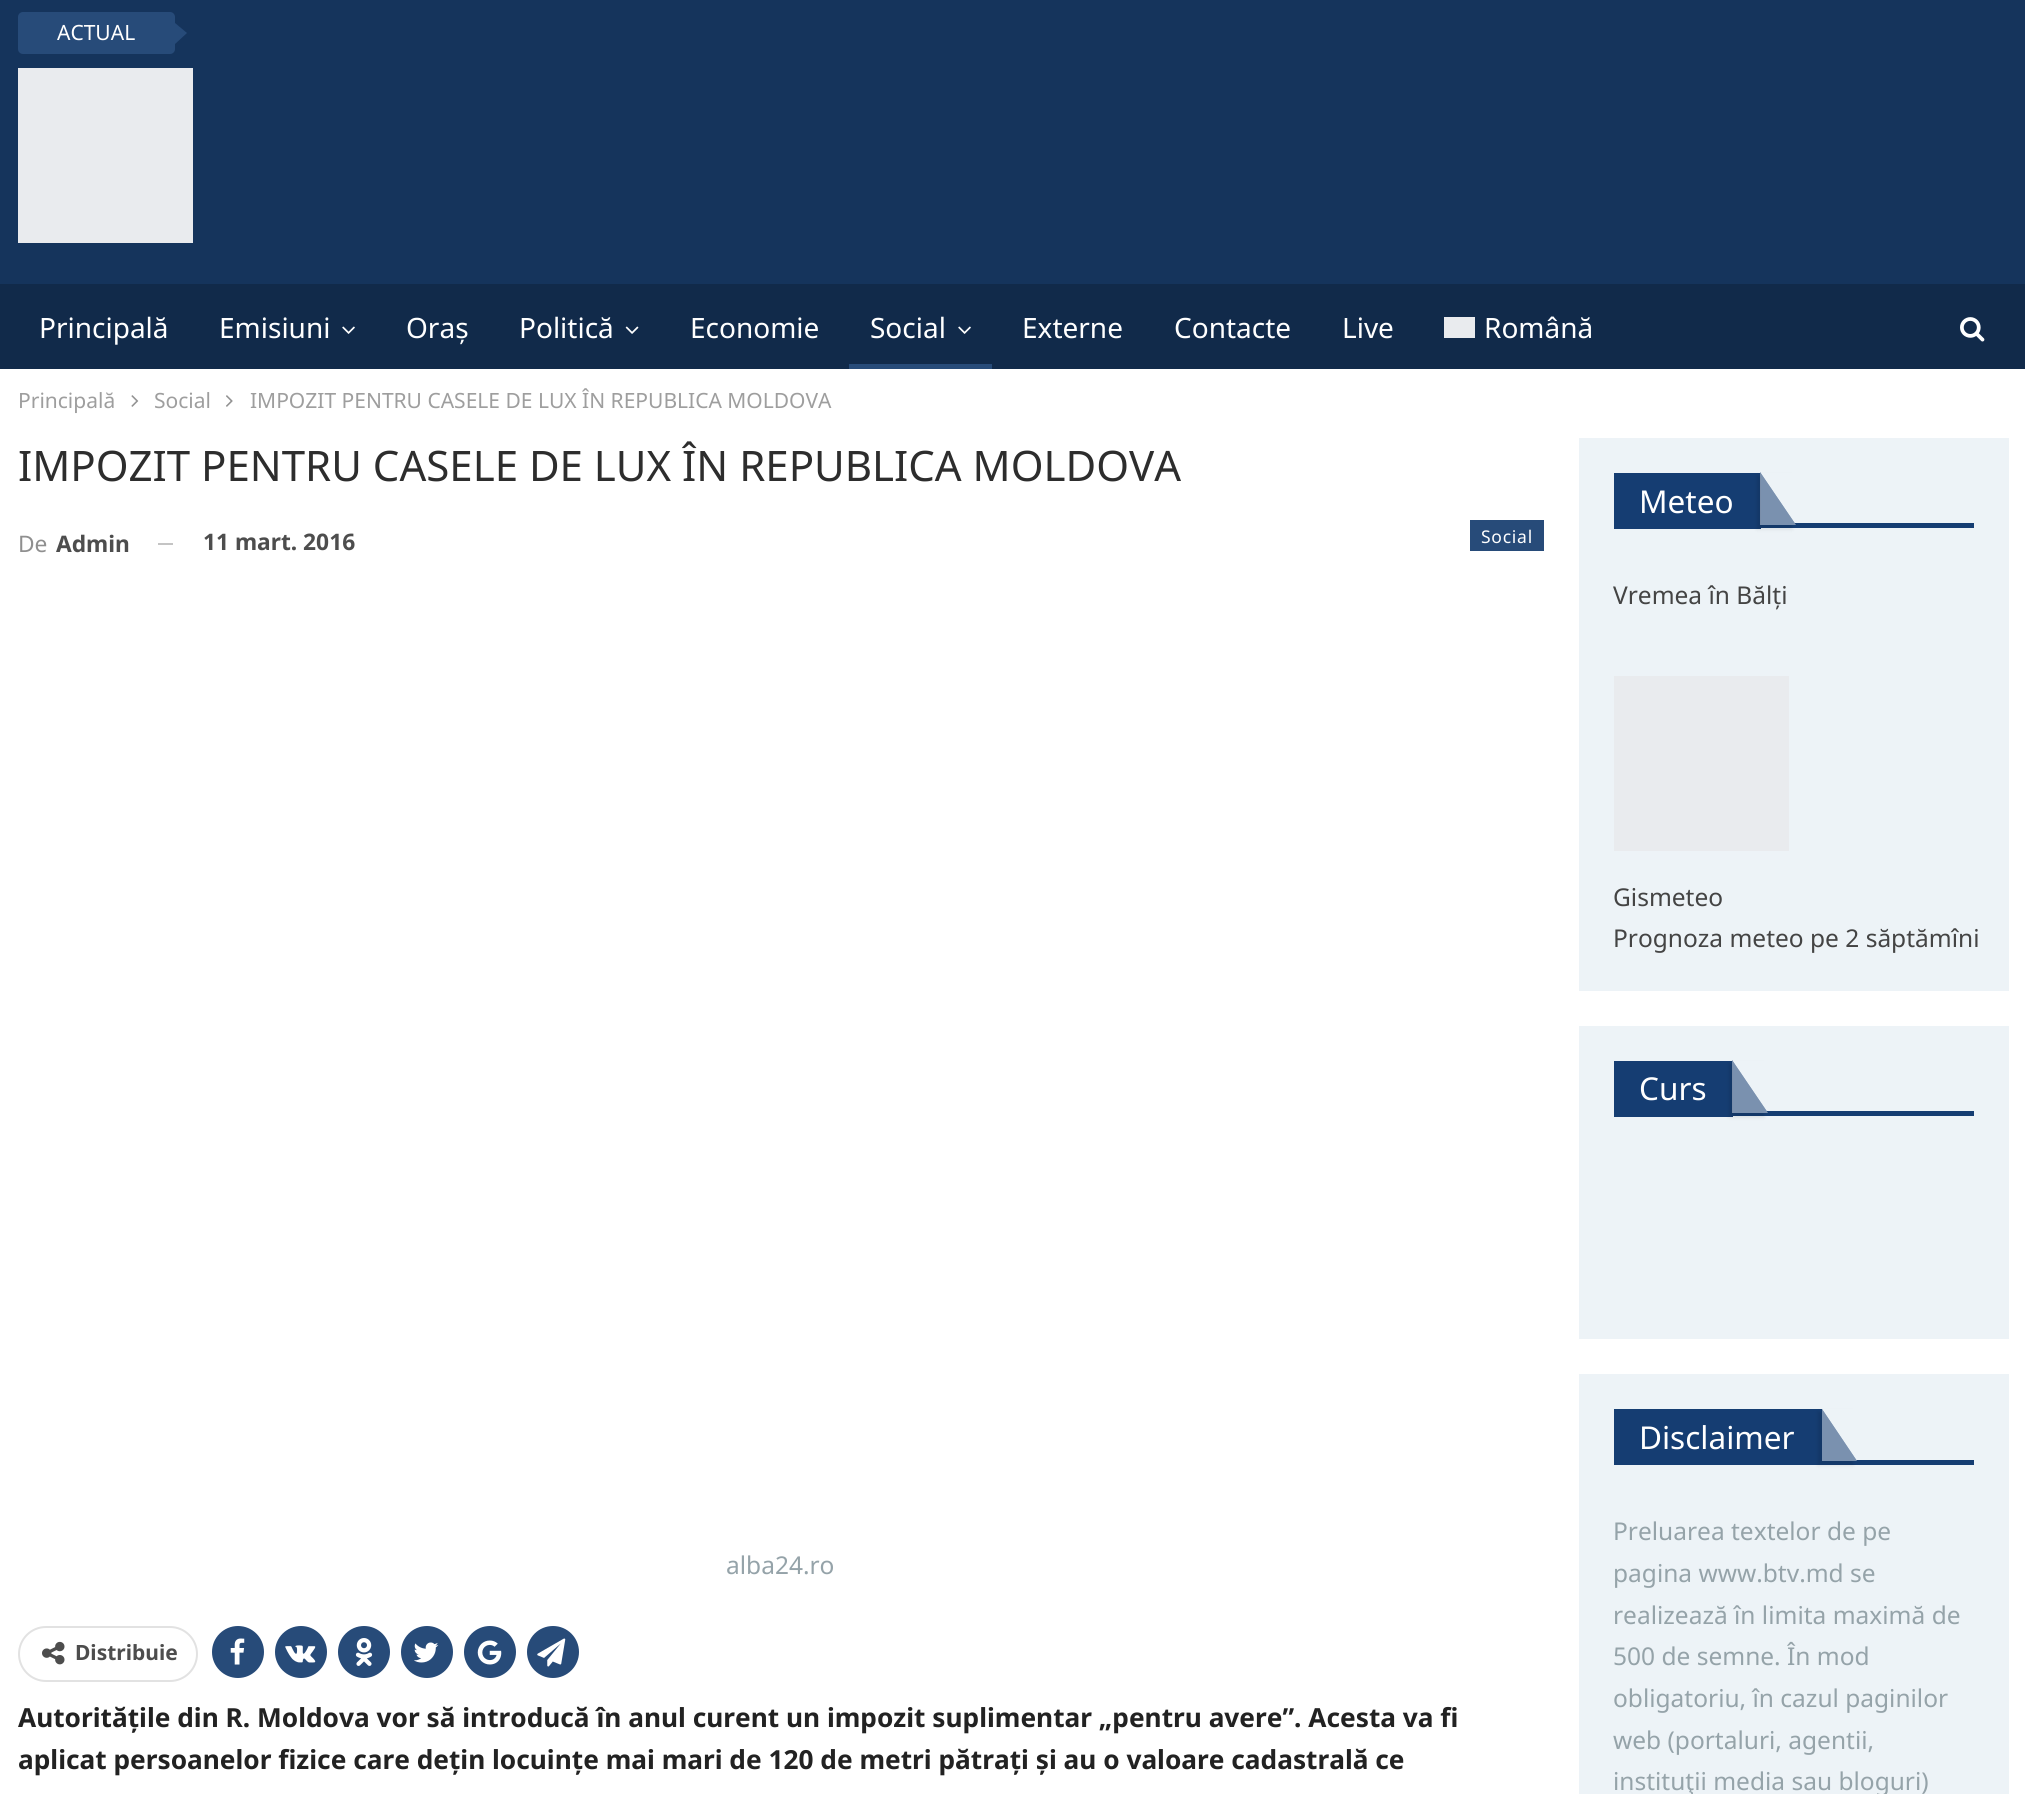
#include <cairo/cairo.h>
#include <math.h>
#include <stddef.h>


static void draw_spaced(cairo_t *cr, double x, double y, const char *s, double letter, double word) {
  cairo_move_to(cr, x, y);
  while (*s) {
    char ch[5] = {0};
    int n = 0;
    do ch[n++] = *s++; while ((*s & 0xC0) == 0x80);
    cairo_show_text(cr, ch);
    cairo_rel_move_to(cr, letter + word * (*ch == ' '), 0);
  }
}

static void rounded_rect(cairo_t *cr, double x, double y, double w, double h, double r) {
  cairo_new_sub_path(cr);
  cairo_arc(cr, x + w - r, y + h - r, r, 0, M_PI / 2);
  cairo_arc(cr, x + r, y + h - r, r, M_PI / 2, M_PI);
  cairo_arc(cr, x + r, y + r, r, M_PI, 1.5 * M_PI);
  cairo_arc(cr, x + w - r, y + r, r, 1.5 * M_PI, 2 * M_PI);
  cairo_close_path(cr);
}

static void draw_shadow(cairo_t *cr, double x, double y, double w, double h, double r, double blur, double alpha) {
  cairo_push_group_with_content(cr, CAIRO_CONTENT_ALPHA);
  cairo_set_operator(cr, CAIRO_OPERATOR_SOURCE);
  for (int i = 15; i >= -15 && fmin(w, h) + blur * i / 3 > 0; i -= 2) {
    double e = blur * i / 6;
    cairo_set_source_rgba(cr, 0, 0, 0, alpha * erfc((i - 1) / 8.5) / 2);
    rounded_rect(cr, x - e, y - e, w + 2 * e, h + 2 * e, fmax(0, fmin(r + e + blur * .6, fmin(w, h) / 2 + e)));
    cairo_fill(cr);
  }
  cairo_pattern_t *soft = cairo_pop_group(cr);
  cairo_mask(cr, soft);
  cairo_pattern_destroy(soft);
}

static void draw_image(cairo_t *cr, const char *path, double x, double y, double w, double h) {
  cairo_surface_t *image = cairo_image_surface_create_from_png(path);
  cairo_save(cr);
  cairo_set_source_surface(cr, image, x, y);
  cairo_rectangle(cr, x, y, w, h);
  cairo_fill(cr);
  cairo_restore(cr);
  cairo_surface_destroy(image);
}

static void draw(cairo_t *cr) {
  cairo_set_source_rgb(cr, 1, 1, 1);
  cairo_paint(cr);
  cairo_set_source_rgb(cr, 21 / 255.0, 52 / 255.0, 92 / 255.0);
  cairo_rectangle(cr, 0, 0, 2025, 284);
  cairo_fill(cr);
  cairo_set_source_rgb(cr, 39 / 255.0, 75 / 255.0, 121 / 255.0);
  rounded_rect(cr, 18, 12, 157, 42, 5);
  cairo_fill(cr);
  cairo_new_path(cr);
  cairo_move_to(cr, 175, 44);
  cairo_line_to(cr, 175, 23);
  cairo_line_to(cr, 187, 33);
  cairo_close_path(cr);
  cairo_fill(cr);
  cairo_set_source_rgb(cr, 233 / 255.0, 235 / 255.0, 238 / 255.0);
  cairo_rectangle(cr, 18, 68, 175, 175);
  cairo_fill(cr);
  cairo_set_source_rgb(cr, 17 / 255.0, 42 / 255.0, 74 / 255.0);
  cairo_rectangle(cr, 0, 284, 2025, 85);
  cairo_fill(cr);
  draw_image(cr, "images/1.png", 342, 326, 13, 8);
  draw_image(cr, "images/2.png", 625, 326, 14, 8);
  draw_image(cr, "images/1.png", 958, 326, 13, 8);
  cairo_set_source_rgb(cr, 39 / 255.0, 75 / 255.0, 121 / 255.0);
  cairo_rectangle(cr, 849, 364, 143, 5);
  cairo_fill(cr);
  cairo_set_source_rgb(cr, 233 / 255.0, 235 / 255.0, 238 / 255.0);
  cairo_rectangle(cr, 1444, 317, 31, 21);
  cairo_fill(cr);
  draw_image(cr, "images/3.png", 1960, 317, 25, 25);
  draw_image(cr, "images/4.png", 131, 395, 8, 12);
  draw_image(cr, "images/5.png", 226, 395, 7, 12);
  cairo_set_source_rgb(cr, 196 / 255.0, 196 / 255.0, 196 / 255.0);
  cairo_rectangle(cr, 158, 543, 15, 2);
  cairo_fill(cr);
  cairo_set_source_rgb(cr, 39 / 255.0, 75 / 255.0, 121 / 255.0);
  cairo_rectangle(cr, 1470, 520, 74, 31);
  cairo_fill(cr);
  rounded_rect(cr, 19, 1627, 178, 54, 27);
  cairo_set_source_rgb(cr, 226 / 255.0, 226 / 255.0, 226 / 255.0);
  cairo_stroke(cr);
  draw_image(cr, "images/6.png", 42, 1641, 23, 24);
  cairo_set_source_rgb(cr, 39 / 255.0, 75 / 255.0, 121 / 255.0);
  cairo_arc(cr, 238, 1652, 26, 0, 2 * M_PI);
  cairo_fill(cr);
  draw_image(cr, "images/7.png", 230, 1638, 15, 27);
  cairo_arc(cr, 301, 1652, 26, 0, 2 * M_PI);
  cairo_fill(cr);
  draw_image(cr, "images/8.png", 285, 1645, 31, 18);
  cairo_arc(cr, 364, 1652, 26, 0, 2 * M_PI);
  cairo_fill(cr);
  draw_image(cr, "images/9.png", 355, 1638, 18, 28);
  cairo_arc(cr, 427, 1652, 26, 0, 2 * M_PI);
  cairo_fill(cr);
  draw_image(cr, "images/10.png", 414, 1642, 25, 21);
  cairo_arc(cr, 490, 1652, 26, 0, 2 * M_PI);
  cairo_fill(cr);
  draw_image(cr, "images/11.png", 477, 1640, 25, 25);
  cairo_arc(cr, 553, 1652, 26, 0, 2 * M_PI);
  cairo_fill(cr);
  draw_image(cr, "images/12.png", 537, 1638, 29, 29);
  cairo_set_source_rgb(cr, 237 / 255.0, 243 / 255.0, 247 / 255.0);
  cairo_rectangle(cr, 1579, 438, 430, 553);
  cairo_fill(cr);
  cairo_set_source_rgb(cr, 21 / 255.0, 61 / 255.0, 114 / 255.0);
  cairo_rectangle(cr, 1614, 473, 147, 56);
  cairo_fill(cr);
  cairo_rectangle(cr, 1761, 523, 213, 5);
  cairo_fill(cr);
  cairo_new_path(cr);
  cairo_move_to(cr, 1796, 525);
  cairo_line_to(cr, 1760, 525);
  cairo_line_to(cr, 1760, 472);
  cairo_close_path(cr);
  cairo_fill(cr);
  cairo_save(cr);
  cairo_set_fill_rule(cr, CAIRO_FILL_RULE_EVEN_ODD);
  cairo_new_path(cr);
  cairo_move_to(cr, 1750, 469);
  cairo_line_to(cr, 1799, 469);
  cairo_line_to(cr, 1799, 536);
  cairo_line_to(cr, 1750, 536);
  cairo_close_path(cr);
  cairo_move_to(cr, 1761, 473);
  cairo_line_to(cr, 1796, 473);
  cairo_line_to(cr, 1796, 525);
  cairo_line_to(cr, 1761, 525);
  cairo_close_path(cr);
  cairo_clip(cr);
  cairo_set_source_rgb(cr, 0, 0, 0);
  draw_shadow(cr, 1757, 476, 35, 53, 0, 2, 0.1);
  cairo_restore(cr);
  cairo_set_source_rgba(cr, 1, 1, 1, 0.43);
  cairo_new_path(cr);
  cairo_move_to(cr, 1796, 525);
  cairo_line_to(cr, 1760, 525);
  cairo_line_to(cr, 1760, 472);
  cairo_close_path(cr);
  cairo_fill(cr);
  cairo_set_source_rgb(cr, 233 / 255.0, 235 / 255.0, 238 / 255.0);
  cairo_rectangle(cr, 1614, 676, 175, 175);
  cairo_fill(cr);
  cairo_set_source_rgb(cr, 237 / 255.0, 243 / 255.0, 247 / 255.0);
  cairo_rectangle(cr, 1579, 1026, 430, 313);
  cairo_fill(cr);
  cairo_set_source_rgb(cr, 21 / 255.0, 61 / 255.0, 114 / 255.0);
  cairo_rectangle(cr, 1614, 1061, 119, 56);
  cairo_fill(cr);
  cairo_rectangle(cr, 1733, 1111, 241, 5);
  cairo_fill(cr);
  cairo_new_path(cr);
  cairo_move_to(cr, 1768, 1113);
  cairo_line_to(cr, 1732, 1113);
  cairo_line_to(cr, 1732, 1060);
  cairo_close_path(cr);
  cairo_fill(cr);
  cairo_save(cr);
  cairo_set_fill_rule(cr, CAIRO_FILL_RULE_EVEN_ODD);
  cairo_new_path(cr);
  cairo_move_to(cr, 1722, 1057);
  cairo_line_to(cr, 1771, 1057);
  cairo_line_to(cr, 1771, 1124);
  cairo_line_to(cr, 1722, 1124);
  cairo_close_path(cr);
  cairo_move_to(cr, 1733, 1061);
  cairo_line_to(cr, 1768, 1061);
  cairo_line_to(cr, 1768, 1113);
  cairo_line_to(cr, 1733, 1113);
  cairo_close_path(cr);
  cairo_clip(cr);
  cairo_set_source_rgb(cr, 0, 0, 0);
  draw_shadow(cr, 1729, 1064, 35, 53, 0, 2, 0.1);
  cairo_restore(cr);
  cairo_set_source_rgba(cr, 1, 1, 1, 0.43);
  cairo_new_path(cr);
  cairo_move_to(cr, 1768, 1113);
  cairo_line_to(cr, 1732, 1113);
  cairo_line_to(cr, 1732, 1060);
  cairo_close_path(cr);
  cairo_fill(cr);
  cairo_set_source_rgb(cr, 237 / 255.0, 243 / 255.0, 247 / 255.0);
  cairo_rectangle(cr, 1579, 1374, 430, 420);
  cairo_fill(cr);
  cairo_set_source_rgb(cr, 21 / 255.0, 61 / 255.0, 114 / 255.0);
  cairo_rectangle(cr, 1614, 1409, 208, 56);
  cairo_fill(cr);
  cairo_rectangle(cr, 1822, 1460, 152, 5);
  cairo_fill(cr);
  cairo_new_path(cr);
  cairo_move_to(cr, 1857, 1461);
  cairo_line_to(cr, 1822, 1461);
  cairo_line_to(cr, 1822, 1409);
  cairo_close_path(cr);
  cairo_fill(cr);
  cairo_save(cr);
  cairo_set_fill_rule(cr, CAIRO_FILL_RULE_EVEN_ODD);
  cairo_new_path(cr);
  cairo_move_to(cr, 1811, 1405);
  cairo_line_to(cr, 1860, 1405);
  cairo_line_to(cr, 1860, 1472);
  cairo_line_to(cr, 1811, 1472);
  cairo_close_path(cr);
  cairo_move_to(cr, 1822, 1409);
  cairo_line_to(cr, 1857, 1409);
  cairo_line_to(cr, 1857, 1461);
  cairo_line_to(cr, 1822, 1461);
  cairo_close_path(cr);
  cairo_clip(cr);
  cairo_set_source_rgb(cr, 0, 0, 0);
  draw_shadow(cr, 1818, 1412, 35, 53, 0, 2, 0.1);
  cairo_restore(cr);
  cairo_set_source_rgba(cr, 1, 1, 1, 0.43);
  cairo_new_path(cr);
  cairo_move_to(cr, 1857, 1461);
  cairo_line_to(cr, 1822, 1461);
  cairo_line_to(cr, 1822, 1409);
  cairo_close_path(cr);
  cairo_fill(cr);
  cairo_select_font_face(cr, "Noto Sans", CAIRO_FONT_SLANT_NORMAL, CAIRO_FONT_WEIGHT_NORMAL);
  cairo_set_font_size(cr, 21);
  cairo_set_source_rgb(cr, 1, 1, 1);
  cairo_move_to(cr, 57, 40);
  cairo_show_text(cr, "ACTUAL");
  cairo_set_font_size(cr, 28);
  cairo_move_to(cr, 39, 338);
  cairo_show_text(cr, "Principală");
  cairo_move_to(cr, 219, 338);
  cairo_show_text(cr, "Emisiuni");
  cairo_move_to(cr, 406, 338);
  cairo_show_text(cr, "Oraș");
  cairo_move_to(cr, 519, 338);
  cairo_show_text(cr, "Politică");
  cairo_move_to(cr, 690, 338);
  cairo_show_text(cr, "Economie");
  cairo_move_to(cr, 870, 338);
  cairo_show_text(cr, "Social");
  cairo_move_to(cr, 1022, 338);
  cairo_show_text(cr, "Externe");
  cairo_move_to(cr, 1174, 338);
  cairo_show_text(cr, "Contacte");
  cairo_move_to(cr, 1342, 338);
  cairo_show_text(cr, "Live");
  cairo_move_to(cr, 1484, 338);
  cairo_show_text(cr, "Română");
  cairo_set_font_size(cr, 21);
  cairo_set_source_rgb(cr, 158 / 255.0, 158 / 255.0, 158 / 255.0);
  cairo_move_to(cr, 18, 408);
  cairo_show_text(cr, "Principală");
  cairo_move_to(cr, 154, 408);
  cairo_show_text(cr, "Social");
  cairo_move_to(cr, 250, 408);
  cairo_show_text(cr, "IMPOZIT PENTRU CASELE DE LUX ÎN REPUBLICA MOLDOVA");
  cairo_set_font_size(cr, 42);
  cairo_set_source_rgb(cr, 45 / 255.0, 45 / 255.0, 45 / 255.0);
  cairo_move_to(cr, 18, 481);
  cairo_show_text(cr, "IMPOZIT PENTRU CASELE DE LUX ÎN REPUBLICA MOLDOVA");
  cairo_set_font_size(cr, 22.75);
  cairo_set_source_rgb(cr, 143 / 255.0, 143 / 255.0, 143 / 255.0);
  cairo_move_to(cr, 18, 552);
  cairo_show_text(cr, "De");
  cairo_select_font_face(cr, "Noto Sans", CAIRO_FONT_SLANT_NORMAL, CAIRO_FONT_WEIGHT_BOLD);
  cairo_set_source_rgb(cr, 77 / 255.0, 77 / 255.0, 77 / 255.0);
  cairo_move_to(cr, 56, 552);
  cairo_show_text(cr, "Admin");
  cairo_move_to(cr, 203, 550);
  cairo_show_text(cr, "11 mart. 2016");
  cairo_select_font_face(cr, "Noto Sans", CAIRO_FONT_SLANT_NORMAL, CAIRO_FONT_WEIGHT_NORMAL);
  cairo_set_font_size(cr, 17.5);
  cairo_set_source_rgb(cr, 1, 1, 1);
  draw_spaced(cr, 1481, 543, "Social", 0.75, 0);
  cairo_set_font_size(cr, 24.5);
  cairo_set_source_rgb(cr, 149 / 255.0, 163 / 255.0, 169 / 255.0);
  cairo_move_to(cr, 726, 1574);
  cairo_show_text(cr, "alba24.ro");
  cairo_select_font_face(cr, "Noto Sans", CAIRO_FONT_SLANT_NORMAL, CAIRO_FONT_WEIGHT_BOLD);
  cairo_set_font_size(cr, 21);
  cairo_set_source_rgb(cr, 77 / 255.0, 77 / 255.0, 77 / 255.0);
  cairo_move_to(cr, 75, 1660);
  cairo_show_text(cr, "Distribuie");
  cairo_set_font_size(cr, 26.25);
  cairo_set_source_rgb(cr, 34 / 255.0, 34 / 255.0, 34 / 255.0);
  cairo_move_to(cr, 18, 1727);
  cairo_show_text(cr, "Autoritățile din R. Moldova vor să introducă în anul curent un impozit suplimentar „pentru avere”. Acesta va fi");
  cairo_move_to(cr, 18, 1769);
  cairo_show_text(cr, "aplicat persoanelor fizice care dețin locuințe mai mari de 120 de metri pătrați și au o valoare cadastrală ce");
  cairo_select_font_face(cr, "Noto Sans", CAIRO_FONT_SLANT_NORMAL, CAIRO_FONT_WEIGHT_NORMAL);
  cairo_set_font_size(cr, 31.5);
  cairo_set_source_rgb(cr, 1, 1, 1);
  cairo_move_to(cr, 1639, 513);
  cairo_show_text(cr, "Meteo");
  cairo_set_font_size(cr, 24.5);
  cairo_set_source_rgb(cr, 68 / 255.0, 68 / 255.0, 68 / 255.0);
  cairo_move_to(cr, 1613, 604);
  cairo_show_text(cr, "Vremea în Bălți");
  cairo_move_to(cr, 1613, 906);
  cairo_show_text(cr, "Gismeteo");
  cairo_move_to(cr, 1613, 947);
  cairo_show_text(cr, "Prognoza meteo pe 2 săptămîni");
  cairo_set_font_size(cr, 31.5);
  cairo_set_source_rgb(cr, 1, 1, 1);
  cairo_move_to(cr, 1639, 1100);
  cairo_show_text(cr, "Curs");
  cairo_move_to(cr, 1639, 1449);
  cairo_show_text(cr, "Disclaimer");
  cairo_set_font_size(cr, 24.5);
  cairo_set_source_rgb(cr, 149 / 255.0, 163 / 255.0, 169 / 255.0);
  cairo_move_to(cr, 1613, 1540);
  cairo_show_text(cr, "Preluarea textelor de pe");
  cairo_move_to(cr, 1613, 1582);
  cairo_show_text(cr, "pagina www.btv.md se");
  cairo_move_to(cr, 1613, 1624);
  cairo_show_text(cr, "realizează în limita maximă de");
  cairo_move_to(cr, 1613, 1665);
  cairo_show_text(cr, "500 de semne. În mod");
  cairo_move_to(cr, 1613, 1707);
  cairo_show_text(cr, "obligatoriu, în cazul paginilor");
  cairo_move_to(cr, 1613, 1749);
  cairo_show_text(cr, "web (portaluri, agentii,");
  cairo_move_to(cr, 1613, 1790);
  cairo_show_text(cr, "instituţii media sau bloguri)");
}

int main(void) {
  cairo_surface_t *surface = cairo_image_surface_create(CAIRO_FORMAT_RGB24, 2025, 1794);
  cairo_t *cr = cairo_create(surface);
  cairo_font_options_t *options = cairo_font_options_create();
  cairo_font_options_set_hint_metrics(options, CAIRO_HINT_METRICS_OFF);
  cairo_font_options_set_hint_style(options, CAIRO_HINT_STYLE_NONE);
  cairo_set_font_options(cr, options);
  cairo_set_miter_limit(cr, 4);
  draw(cr);
  cairo_surface_write_to_png(surface, "out.png");
  cairo_font_options_destroy(options);
  cairo_destroy(cr);
  cairo_surface_destroy(surface);
  return 0;
}
